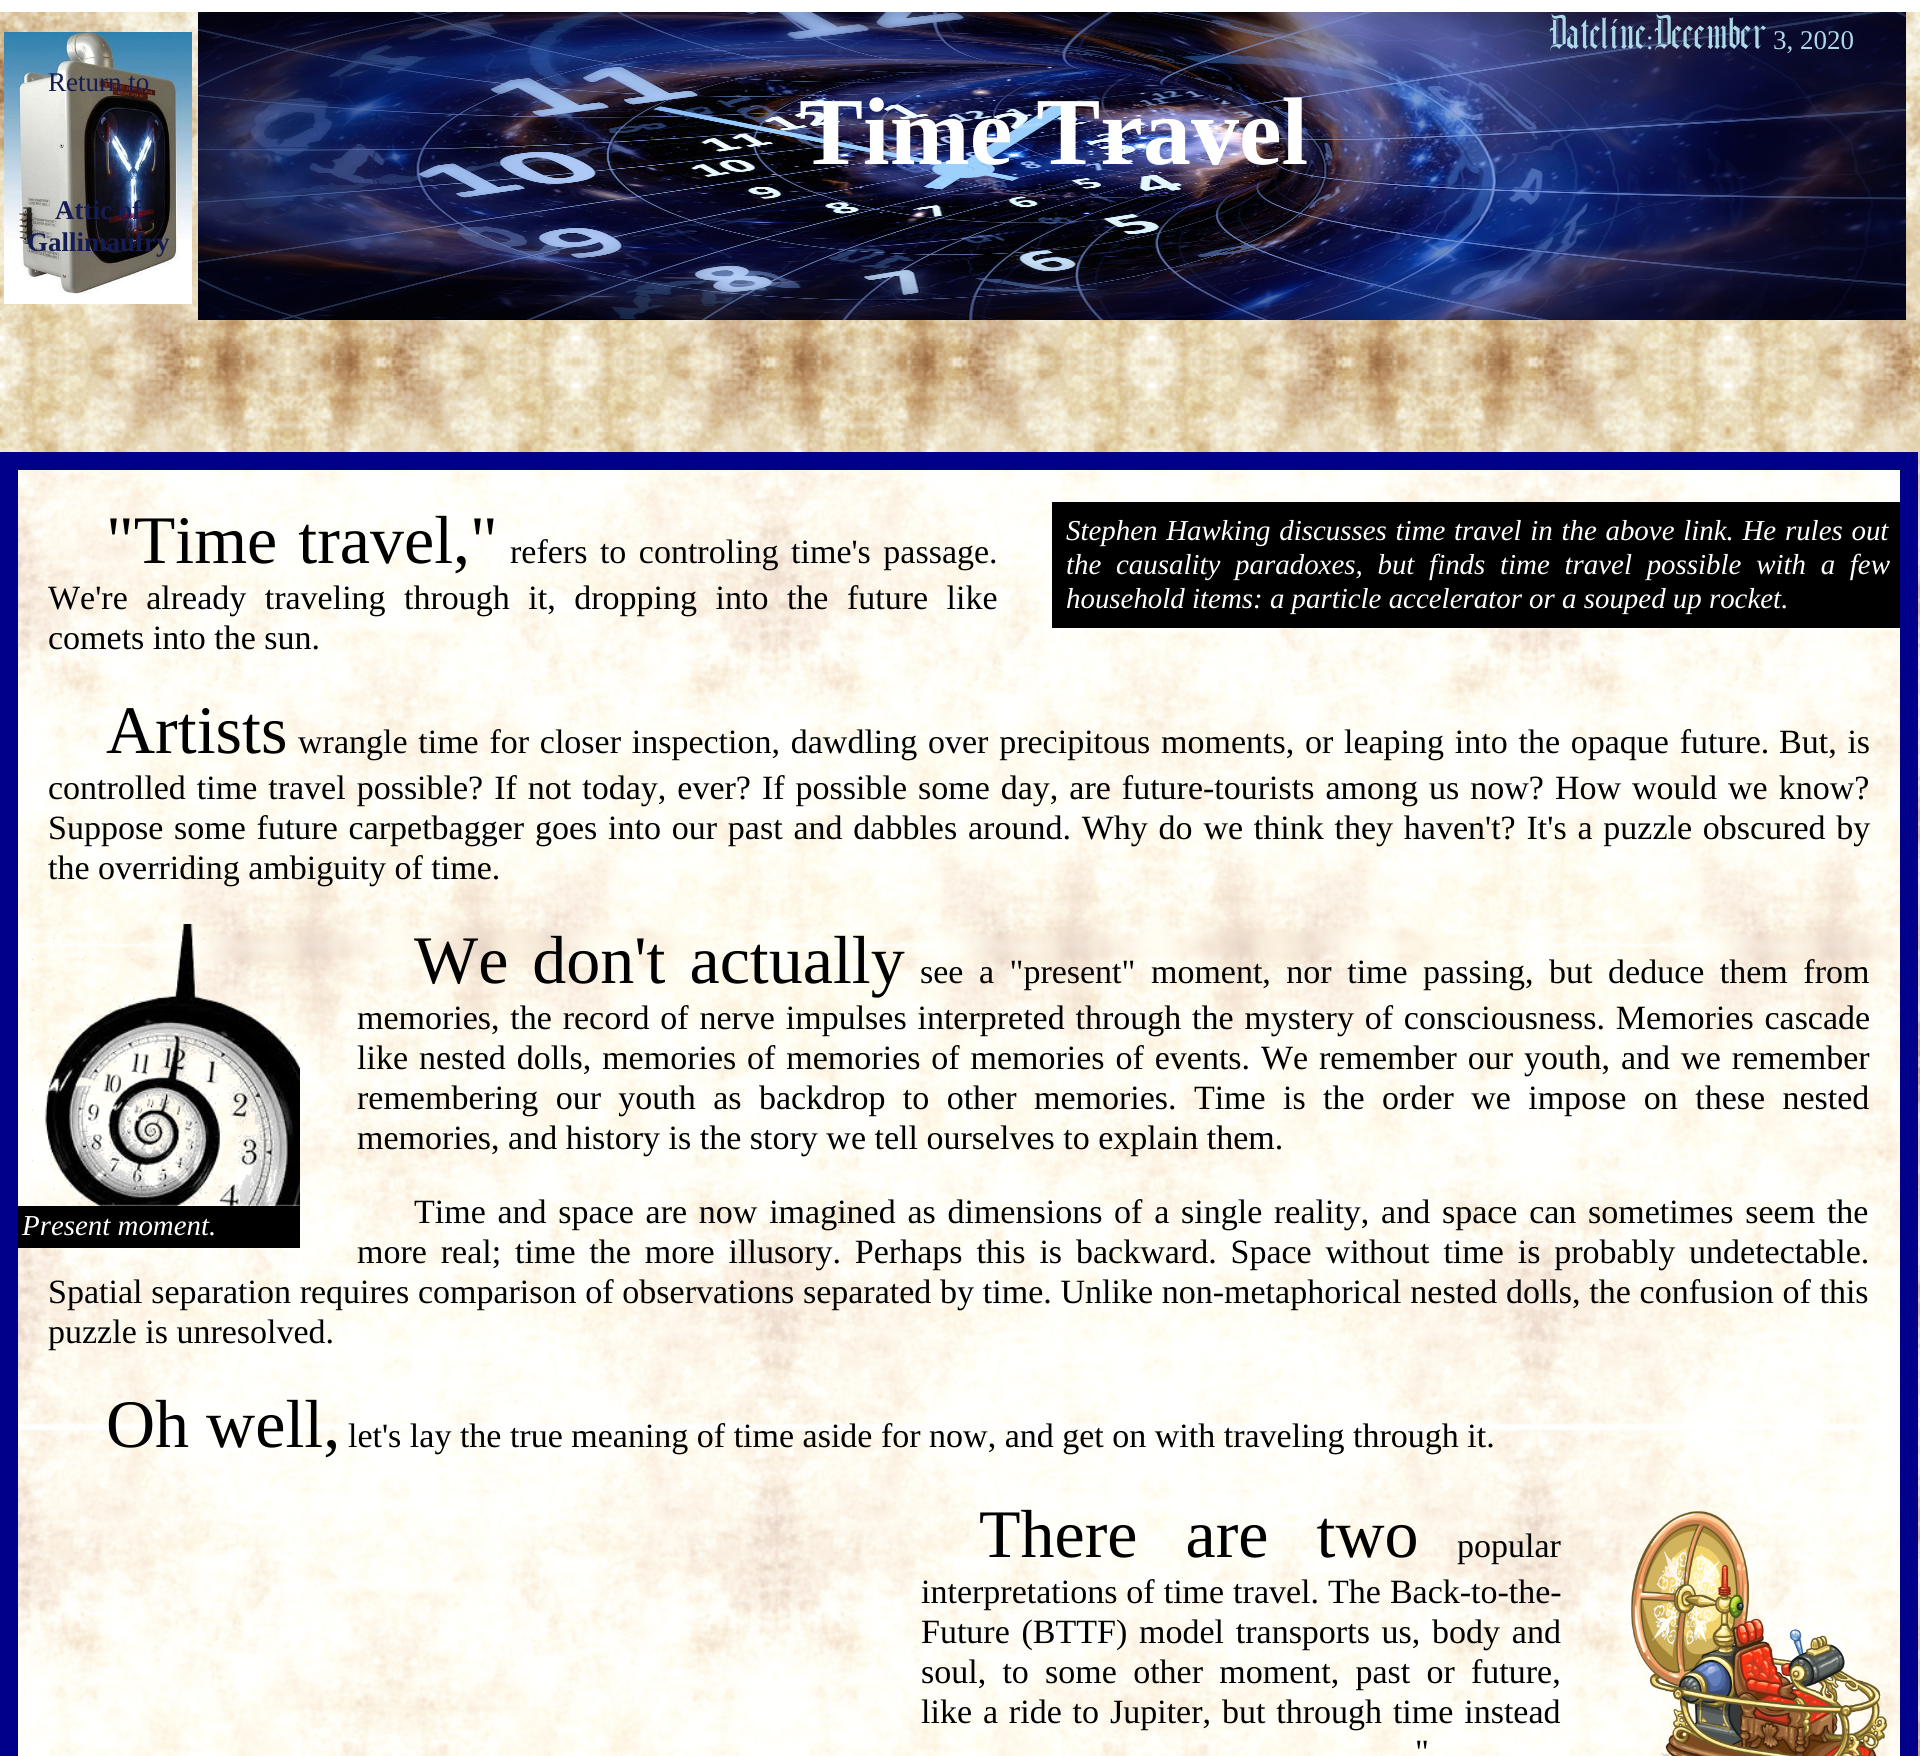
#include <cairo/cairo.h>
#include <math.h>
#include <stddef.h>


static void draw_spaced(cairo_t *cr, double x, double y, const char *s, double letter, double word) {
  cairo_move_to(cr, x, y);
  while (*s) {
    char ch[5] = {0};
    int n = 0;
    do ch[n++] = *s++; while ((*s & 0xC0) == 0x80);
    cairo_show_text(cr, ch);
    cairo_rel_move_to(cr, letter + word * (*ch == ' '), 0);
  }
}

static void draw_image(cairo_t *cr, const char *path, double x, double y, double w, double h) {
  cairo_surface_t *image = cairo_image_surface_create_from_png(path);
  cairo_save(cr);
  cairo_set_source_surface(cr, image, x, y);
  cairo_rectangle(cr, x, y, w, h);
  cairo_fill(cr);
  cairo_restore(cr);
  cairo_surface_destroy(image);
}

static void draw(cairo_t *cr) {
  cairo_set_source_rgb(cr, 1, 1, 1);
  cairo_paint(cr);
  draw_image(cr, "images/1.png", 0, 12, 1920, 1744);
  draw_image(cr, "images/2.png", 4, 32, 188, 272);
  draw_image(cr, "images/3.png", 198, 12, 1708, 308);
  draw_image(cr, "images/4.png", 18, 470, 1882, 1286);
  cairo_rectangle(cr, 9, 461, 1900, 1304);
  cairo_set_source_rgb(cr, 0, 0, 139 / 255.0);
  cairo_set_line_width(cr, 18);
  cairo_stroke(cr);
  cairo_set_source_rgb(cr, 0, 0, 0);
  cairo_rectangle(cr, 1052, 502, 848, 126);
  cairo_fill(cr);
  draw_image(cr, "images/5.png", 31, 924, 269, 282);
  cairo_rectangle(cr, 18, 1206, 282, 42);
  cairo_fill(cr);
  draw_image(cr, "images/6.png", 1631, 1511, 257, 245);
  cairo_select_font_face(cr, "Liberation Serif", CAIRO_FONT_SLANT_NORMAL, CAIRO_FONT_WEIGHT_NORMAL);
  cairo_set_font_size(cr, 27);
  cairo_set_source_rgb(cr, 21 / 255.0, 27 / 255.0, 84 / 255.0);
  cairo_move_to(cr, 48, 91);
  cairo_show_text(cr, "Return to");
  cairo_select_font_face(cr, "Liberation Serif", CAIRO_FONT_SLANT_NORMAL, CAIRO_FONT_WEIGHT_BOLD);
  cairo_move_to(cr, 55, 219);
  cairo_show_text(cr, "Attic of");
  cairo_move_to(cr, 27, 251);
  cairo_show_text(cr, "Gallimaufry");
  cairo_select_font_face(cr, "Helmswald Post", CAIRO_FONT_SLANT_NORMAL, CAIRO_FONT_WEIGHT_NORMAL);
  cairo_set_font_size(cr, 29.5);
  cairo_set_source_rgb(cr, 173 / 255.0, 216 / 255.0, 230 / 255.0);
  cairo_move_to(cr, 1549, 49);
  cairo_show_text(cr, "Dateline");
  cairo_select_font_face(cr, "Liberation Serif", CAIRO_FONT_SLANT_NORMAL, CAIRO_FONT_WEIGHT_NORMAL);
  cairo_set_font_size(cr, 27);
  cairo_move_to(cr, 1646, 49);
  cairo_show_text(cr, ":");
  cairo_select_font_face(cr, "Helmswald Post", CAIRO_FONT_SLANT_NORMAL, CAIRO_FONT_WEIGHT_NORMAL);
  cairo_set_font_size(cr, 29.5);
  cairo_move_to(cr, 1654, 49);
  cairo_show_text(cr, "December");
  cairo_select_font_face(cr, "Liberation Serif", CAIRO_FONT_SLANT_NORMAL, CAIRO_FONT_WEIGHT_NORMAL);
  cairo_set_font_size(cr, 27);
  cairo_move_to(cr, 1773, 49);
  cairo_show_text(cr, "3, 2020");
  cairo_select_font_face(cr, "Liberation Serif", CAIRO_FONT_SLANT_NORMAL, CAIRO_FONT_WEIGHT_BOLD);
  cairo_set_font_size(cr, 96);
  cairo_set_source_rgb(cr, 1, 1, 1);
  cairo_move_to(cr, 799, 164);
  cairo_show_text(cr, "Time Travel");
  cairo_select_font_face(cr, "Liberation Serif", CAIRO_FONT_SLANT_NORMAL, CAIRO_FONT_WEIGHT_NORMAL);
  cairo_set_font_size(cr, 68);
  cairo_set_source_rgb(cr, 0, 0, 0);
  draw_spaced(cr, 106, 563, "\"Time travel,\"", 0, 4);
  cairo_set_font_size(cr, 34);
  draw_spaced(cr, 510, 563, "refers to controling time's passage.", 0, 4);
  draw_spaced(cr, 48, 609, "We're already traveling through it, dropping into the future like", 0, 10);
  cairo_move_to(cr, 48, 649);
  cairo_show_text(cr, "comets into the sun.");
  cairo_select_font_face(cr, "Liberation Serif", CAIRO_FONT_SLANT_ITALIC, CAIRO_FONT_WEIGHT_NORMAL);
  cairo_set_font_size(cr, 28.9);
  cairo_set_source_rgb(cr, 1, 1, 1);
  draw_spaced(cr, 1066, 540, "Stephen Hawking discusses time travel in the above link. He rules out", 0, 1.5);
  draw_spaced(cr, 1066, 574, "the causality paradoxes, but finds time travel possible with a few", 0, 7.5);
  cairo_move_to(cr, 1066, 608);
  cairo_show_text(cr, "household items: a particle accelerator or a souped up rocket.");
  cairo_select_font_face(cr, "Liberation Serif", CAIRO_FONT_SLANT_NORMAL, CAIRO_FONT_WEIGHT_NORMAL);
  cairo_set_font_size(cr, 68);
  cairo_set_source_rgb(cr, 0, 0, 0);
  cairo_move_to(cr, 106, 753);
  cairo_show_text(cr, "Artists");
  cairo_set_font_size(cr, 34);
  draw_spaced(cr, 298, 753, "wrangle time for closer inspection, dawdling over precipitous moments, or leaping into the opaque future.", 0, 2.25);
  draw_spaced(cr, 1779, 753, "But, is", 0, 2.25);
  draw_spaced(cr, 48, 799, "controlled time travel possible? If not today, ever? If possible some day, are future-tourists among us now? How would we know?", 0, 2.5);
  draw_spaced(cr, 48, 839, "Suppose some future carpetbagger goes into our past and dabbles around. Why do we think they haven't? It's a puzzle obscured by", 0, 2.3);
  cairo_move_to(cr, 48, 879);
  cairo_show_text(cr, "the overriding ambiguity of time.");
  cairo_set_font_size(cr, 68);
  draw_spaced(cr, 414, 983, "We don't actually", 0, 7);
  cairo_set_font_size(cr, 34);
  draw_spaced(cr, 920, 983, "see a \"present\" moment, nor time passing, but deduce them from", 0, 7);
  draw_spaced(cr, 357, 1029, "memories, the record of nerve impulses interpreted through the mystery of consciousness. Memories cascade", 0, 2.3);
  draw_spaced(cr, 357, 1069, "like nested dolls, memories of memories of memories of events. We remember our youth,", 0, 2.4);
  draw_spaced(cr, 1621, 1069, "and we remember", 0, 2.5);
  draw_spaced(cr, 357, 1109, "remembering our youth as backdrop to other memories. Time is the order we impose on these nested", 0, 8.9);
  cairo_move_to(cr, 357, 1149);
  cairo_show_text(cr, "memories, and history is the story we tell ourselves to explain them.");
  draw_spaced(cr, 414, 1223, "Time and space are now imagined as dimensions of a single reality, and space can sometimes seem the", 0, 3.25);
  draw_spaced(cr, 357, 1263, "more real; time the more illusory. Perhaps this is backward. Space without time is probably undetectable.", 0, 5.4);
  draw_spaced(cr, 48, 1303, "Spatial separation requires comparison of observations separated by time. Unlike non-metaphorical nested dolls, the confusion of this", 0, 0.25);
  cairo_move_to(cr, 48, 1343);
  cairo_show_text(cr, "puzzle is unresolved.");
  cairo_select_font_face(cr, "Liberation Serif", CAIRO_FONT_SLANT_ITALIC, CAIRO_FONT_WEIGHT_NORMAL);
  cairo_set_font_size(cr, 28.9);
  cairo_set_source_rgb(cr, 1, 1, 1);
  cairo_move_to(cr, 22, 1235);
  cairo_show_text(cr, "Present moment.");
  cairo_select_font_face(cr, "Liberation Serif", CAIRO_FONT_SLANT_NORMAL, CAIRO_FONT_WEIGHT_NORMAL);
  cairo_set_font_size(cr, 68);
  cairo_set_source_rgb(cr, 0, 0, 0);
  cairo_move_to(cr, 106, 1447);
  cairo_show_text(cr, "Oh well,");
  cairo_set_font_size(cr, 34);
  cairo_move_to(cr, 348, 1447);
  cairo_show_text(cr, "let's lay the true meaning of time aside for now, and get on with traveling through it.");
  cairo_set_font_size(cr, 68);
  draw_spaced(cr, 979, 1557, "There are two", 0, 31);
  cairo_set_font_size(cr, 34);
  cairo_move_to(cr, 1457, 1557);
  cairo_show_text(cr, "popular");
  draw_spaced(cr, 921, 1603, "interpretations of time travel. The Back-to-the-", 0, 0.5);
  draw_spaced(cr, 921, 1643, "Future (BTTF) model transports us, body and", 0, 3.25);
  draw_spaced(cr, 921, 1683, "soul, to some other moment, past or future,", 0, 7.75);
  draw_spaced(cr, 921, 1723, "like a ride to Jupiter, but through time instead", 0, 2.4);
  draw_spaced(cr, 1415, 1763, "\"", 0, 36);
}

int main(void) {
  cairo_surface_t *surface = cairo_image_surface_create(CAIRO_FORMAT_RGB24, 1920, 1756);
  cairo_t *cr = cairo_create(surface);
  cairo_font_options_t *options = cairo_font_options_create();
  cairo_font_options_set_hint_metrics(options, CAIRO_HINT_METRICS_OFF);
  cairo_font_options_set_hint_style(options, CAIRO_HINT_STYLE_NONE);
  cairo_set_font_options(cr, options);
  cairo_set_miter_limit(cr, 4);
  draw(cr);
  cairo_surface_write_to_png(surface, "out.png");
  cairo_font_options_destroy(options);
  cairo_destroy(cr);
  cairo_surface_destroy(surface);
  return 0;
}
